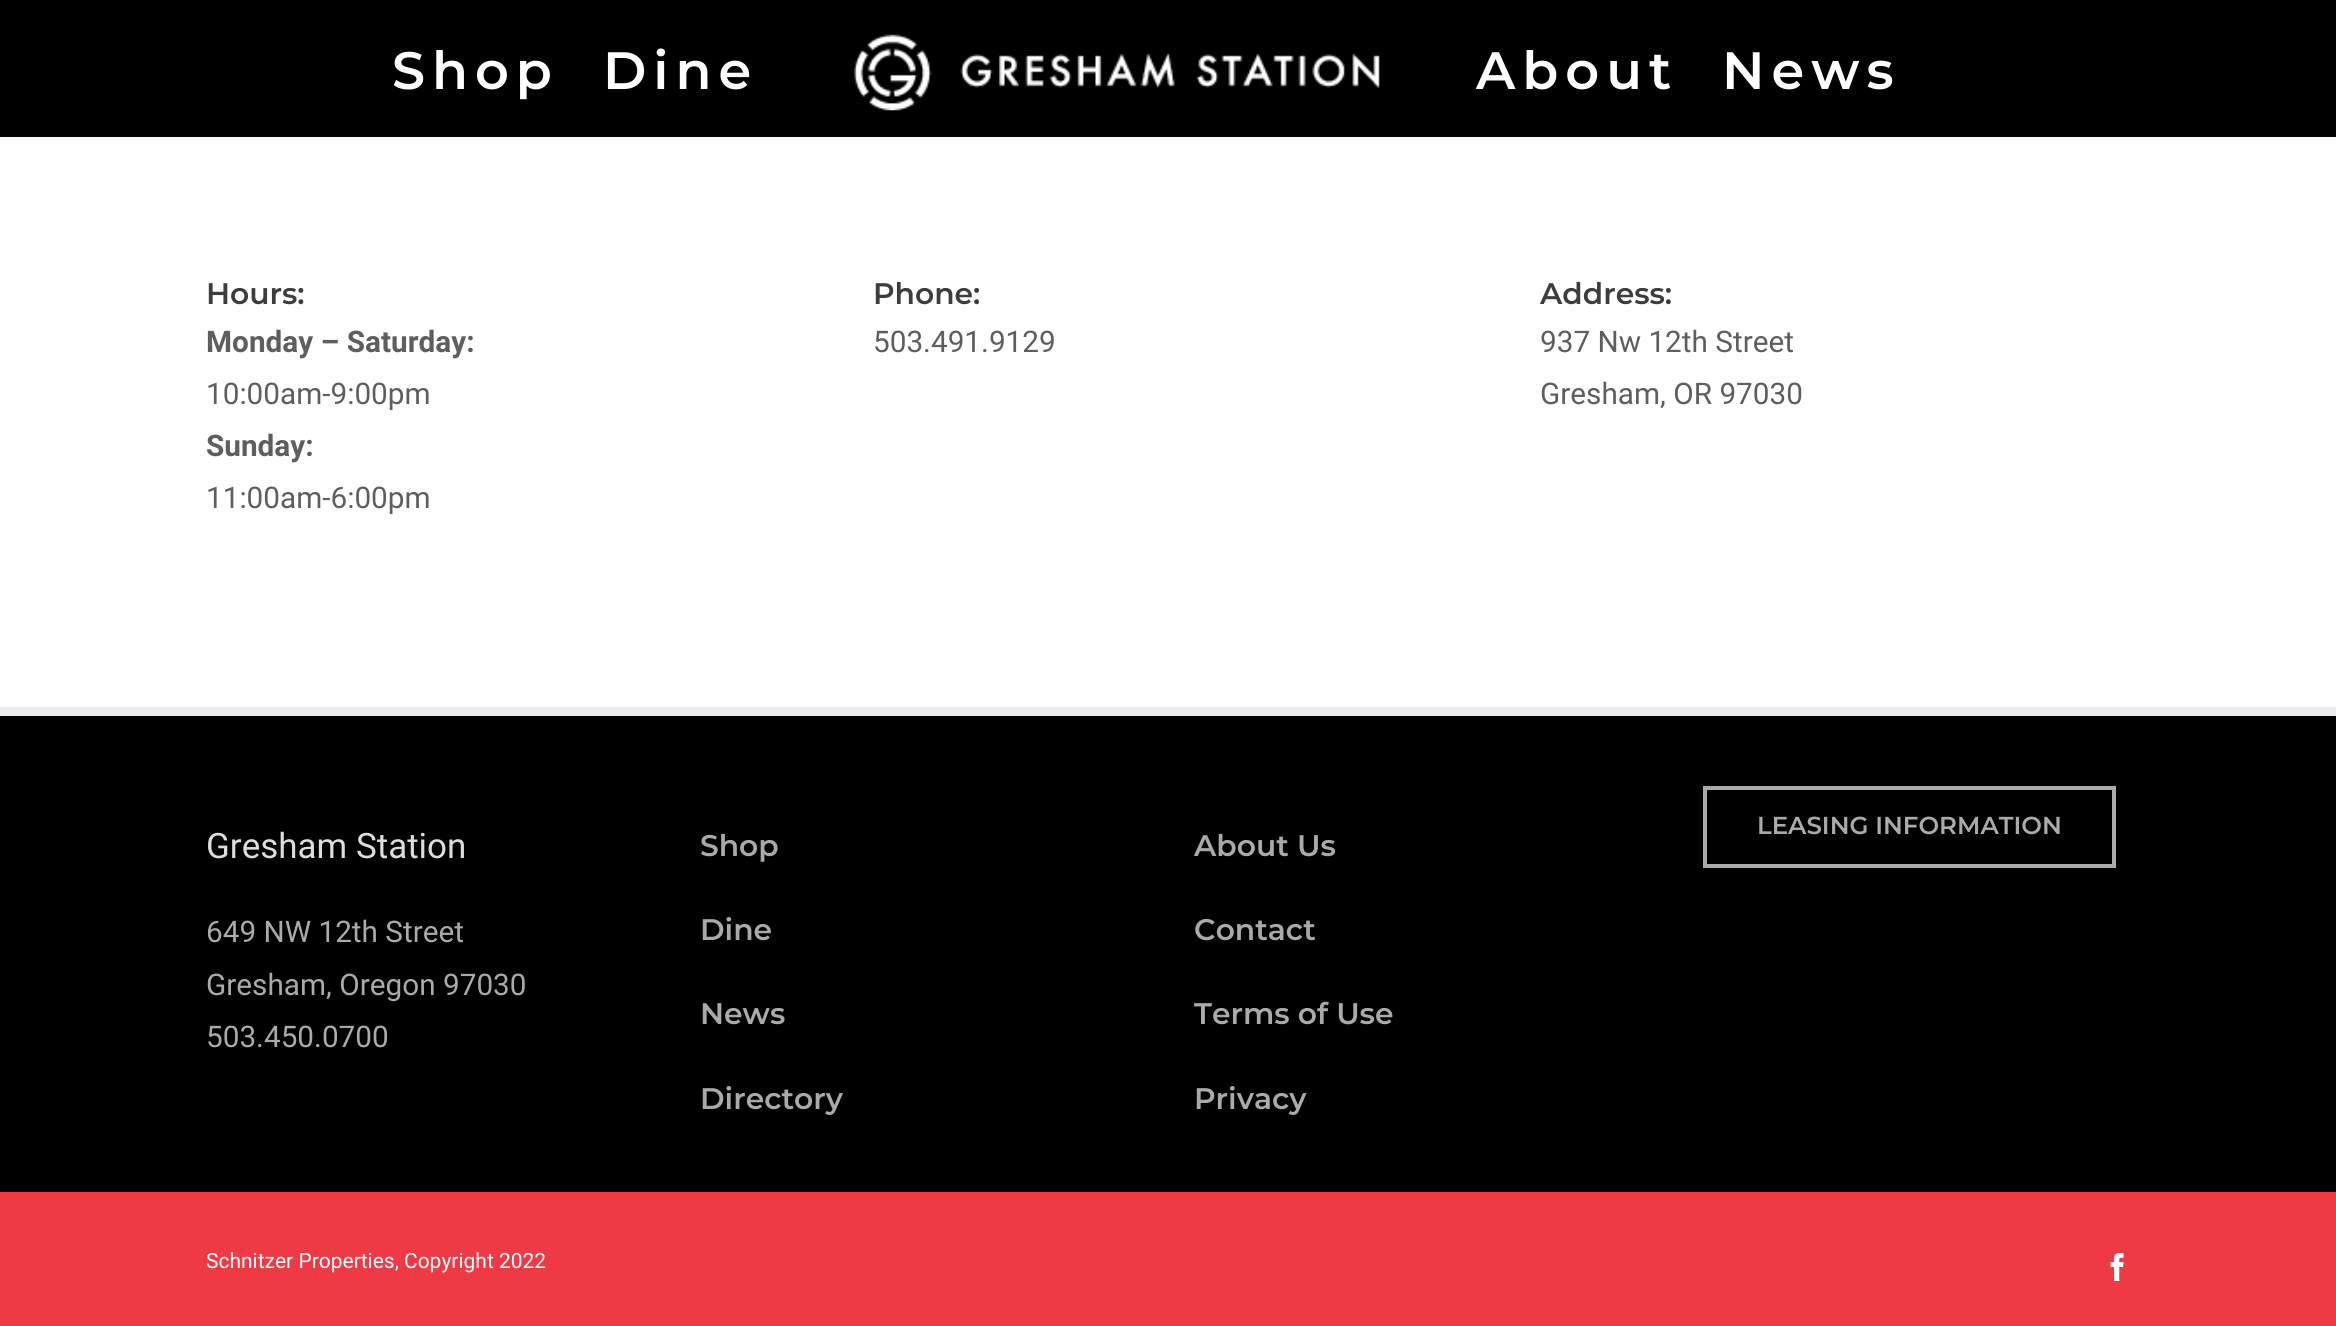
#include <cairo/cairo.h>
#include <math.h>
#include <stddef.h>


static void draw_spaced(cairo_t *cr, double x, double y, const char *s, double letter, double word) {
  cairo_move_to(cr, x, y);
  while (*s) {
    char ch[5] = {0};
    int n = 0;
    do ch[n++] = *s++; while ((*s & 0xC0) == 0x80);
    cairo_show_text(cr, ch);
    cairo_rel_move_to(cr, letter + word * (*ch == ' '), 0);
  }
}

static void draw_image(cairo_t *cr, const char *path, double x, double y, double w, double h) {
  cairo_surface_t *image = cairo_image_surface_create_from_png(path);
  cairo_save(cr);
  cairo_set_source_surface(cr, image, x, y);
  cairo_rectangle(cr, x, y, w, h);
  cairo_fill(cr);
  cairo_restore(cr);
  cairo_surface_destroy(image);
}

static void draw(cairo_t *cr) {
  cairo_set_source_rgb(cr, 1, 1, 1);
  cairo_paint(cr);
  cairo_set_source_rgb(cr, 0, 0, 0);
  cairo_rectangle(cr, 0, 0, 2336, 137);
  cairo_fill(cr);
  draw_image(cr, "images/1.png", 854, 34, 526, 77);
  cairo_rectangle(cr, 0, 716, 2336, 476);
  cairo_fill(cr);
  cairo_set_source_rgb(cr, 233 / 255.0, 234 / 255.0, 238 / 255.0);
  cairo_rectangle(cr, 0, 707, 2336, 9);
  cairo_fill(cr);
  cairo_rectangle(cr, 1705, 788, 409, 78);
  cairo_set_source_rgb(cr, 170 / 255.0, 170 / 255.0, 170 / 255.0);
  cairo_set_line_width(cr, 4);
  cairo_stroke(cr);
  cairo_set_source_rgb(cr, 239 / 255.0, 58 / 255.0, 69 / 255.0);
  cairo_rectangle(cr, 0, 1192, 2336, 134);
  cairo_fill(cr);
  draw_image(cr, "images/2.png", 2110, 1253, 14, 28);
  cairo_select_font_face(cr, "Montserrat SemiBold", CAIRO_FONT_SLANT_NORMAL, CAIRO_FONT_WEIGHT_NORMAL);
  cairo_set_font_size(cr, 52.5);
  cairo_set_source_rgb(cr, 1, 1, 1);
  draw_spaced(cr, 392, 89, "Shop", 7, 0);
  draw_spaced(cr, 603, 89, "Dine", 7, 0);
  draw_spaced(cr, 1476, 89, "About", 7, 0);
  draw_spaced(cr, 1722, 89, "News", 7, 0);
  cairo_set_font_size(cr, 29.75);
  cairo_set_source_rgb(cr, 61 / 255.0, 61 / 255.0, 61 / 255.0);
  cairo_move_to(cr, 206, 304);
  cairo_show_text(cr, "Hours:");
  cairo_select_font_face(cr, "Roboto", CAIRO_FONT_SLANT_NORMAL, CAIRO_FONT_WEIGHT_BOLD);
  cairo_set_source_rgb(cr, 94 / 255.0, 94 / 255.0, 94 / 255.0);
  cairo_move_to(cr, 206, 352);
  cairo_show_text(cr, "Monday – Saturday:");
  cairo_select_font_face(cr, "Roboto", CAIRO_FONT_SLANT_NORMAL, CAIRO_FONT_WEIGHT_NORMAL);
  cairo_move_to(cr, 206, 404);
  cairo_show_text(cr, "10:00am-9:00pm");
  cairo_select_font_face(cr, "Roboto", CAIRO_FONT_SLANT_NORMAL, CAIRO_FONT_WEIGHT_BOLD);
  cairo_move_to(cr, 206, 456);
  cairo_show_text(cr, "Sunday:");
  cairo_select_font_face(cr, "Roboto", CAIRO_FONT_SLANT_NORMAL, CAIRO_FONT_WEIGHT_NORMAL);
  cairo_move_to(cr, 206, 508);
  cairo_show_text(cr, "11:00am-6:00pm");
  cairo_select_font_face(cr, "Montserrat SemiBold", CAIRO_FONT_SLANT_NORMAL, CAIRO_FONT_WEIGHT_NORMAL);
  cairo_set_source_rgb(cr, 61 / 255.0, 61 / 255.0, 61 / 255.0);
  cairo_move_to(cr, 873, 304);
  cairo_show_text(cr, "Phone:");
  cairo_select_font_face(cr, "Roboto", CAIRO_FONT_SLANT_NORMAL, CAIRO_FONT_WEIGHT_NORMAL);
  cairo_set_source_rgb(cr, 94 / 255.0, 94 / 255.0, 94 / 255.0);
  cairo_move_to(cr, 873, 352);
  cairo_show_text(cr, "503.491.9129");
  cairo_select_font_face(cr, "Montserrat SemiBold", CAIRO_FONT_SLANT_NORMAL, CAIRO_FONT_WEIGHT_NORMAL);
  cairo_set_source_rgb(cr, 61 / 255.0, 61 / 255.0, 61 / 255.0);
  cairo_move_to(cr, 1540, 304);
  cairo_show_text(cr, "Address:");
  cairo_select_font_face(cr, "Roboto", CAIRO_FONT_SLANT_NORMAL, CAIRO_FONT_WEIGHT_NORMAL);
  cairo_set_source_rgb(cr, 94 / 255.0, 94 / 255.0, 94 / 255.0);
  cairo_move_to(cr, 1540, 352);
  cairo_show_text(cr, "937 Nw 12th Street");
  cairo_move_to(cr, 1540, 404);
  cairo_show_text(cr, "Gresham, OR 97030");
  cairo_select_font_face(cr, "Montserrat SemiBold", CAIRO_FONT_SLANT_NORMAL, CAIRO_FONT_WEIGHT_NORMAL);
  cairo_set_font_size(cr, 24.5);
  cairo_set_source_rgb(cr, 170 / 255.0, 170 / 255.0, 170 / 255.0);
  cairo_move_to(cr, 1757, 834);
  cairo_show_text(cr, "LEASING INFORMATION");
  cairo_select_font_face(cr, "Roboto", CAIRO_FONT_SLANT_NORMAL, CAIRO_FONT_WEIGHT_NORMAL);
  cairo_set_font_size(cr, 35);
  cairo_set_source_rgb(cr, 221 / 255.0, 221 / 255.0, 221 / 255.0);
  cairo_move_to(cr, 206, 858);
  cairo_show_text(cr, "Gresham Station");
  cairo_set_font_size(cr, 29.75);
  cairo_set_source_rgb(cr, 170 / 255.0, 170 / 255.0, 170 / 255.0);
  cairo_move_to(cr, 206, 942);
  cairo_show_text(cr, "649 NW 12th Street");
  cairo_move_to(cr, 206, 995);
  cairo_show_text(cr, "Gresham, Oregon 97030");
  cairo_move_to(cr, 206, 1047);
  cairo_show_text(cr, "503.450.0700");
  cairo_select_font_face(cr, "Montserrat SemiBold", CAIRO_FONT_SLANT_NORMAL, CAIRO_FONT_WEIGHT_NORMAL);
  cairo_move_to(cr, 700, 856);
  cairo_show_text(cr, "Shop");
  cairo_move_to(cr, 700, 940);
  cairo_show_text(cr, "Dine");
  cairo_move_to(cr, 700, 1024);
  cairo_show_text(cr, "News");
  cairo_move_to(cr, 700, 1109);
  cairo_show_text(cr, "Directory");
  cairo_move_to(cr, 1194, 856);
  cairo_show_text(cr, "About Us");
  cairo_move_to(cr, 1194, 940);
  cairo_show_text(cr, "Contact");
  cairo_move_to(cr, 1194, 1024);
  cairo_show_text(cr, "Terms of Use");
  cairo_move_to(cr, 1194, 1109);
  cairo_show_text(cr, "Privacy");
  cairo_select_font_face(cr, "Roboto", CAIRO_FONT_SLANT_NORMAL, CAIRO_FONT_WEIGHT_NORMAL);
  cairo_set_font_size(cr, 21);
  cairo_set_source_rgb(cr, 1, 1, 1);
  cairo_move_to(cr, 206, 1268);
  cairo_show_text(cr, "Schnitzer Properties, Copyright 2022");
}

int main(void) {
  cairo_surface_t *surface = cairo_image_surface_create(CAIRO_FORMAT_RGB24, 2336, 1326);
  cairo_t *cr = cairo_create(surface);
  cairo_font_options_t *options = cairo_font_options_create();
  cairo_font_options_set_hint_metrics(options, CAIRO_HINT_METRICS_OFF);
  cairo_font_options_set_hint_style(options, CAIRO_HINT_STYLE_NONE);
  cairo_set_font_options(cr, options);
  cairo_set_miter_limit(cr, 4);
  draw(cr);
  cairo_surface_write_to_png(surface, "out.png");
  cairo_font_options_destroy(options);
  cairo_destroy(cr);
  cairo_surface_destroy(surface);
  return 0;
}
